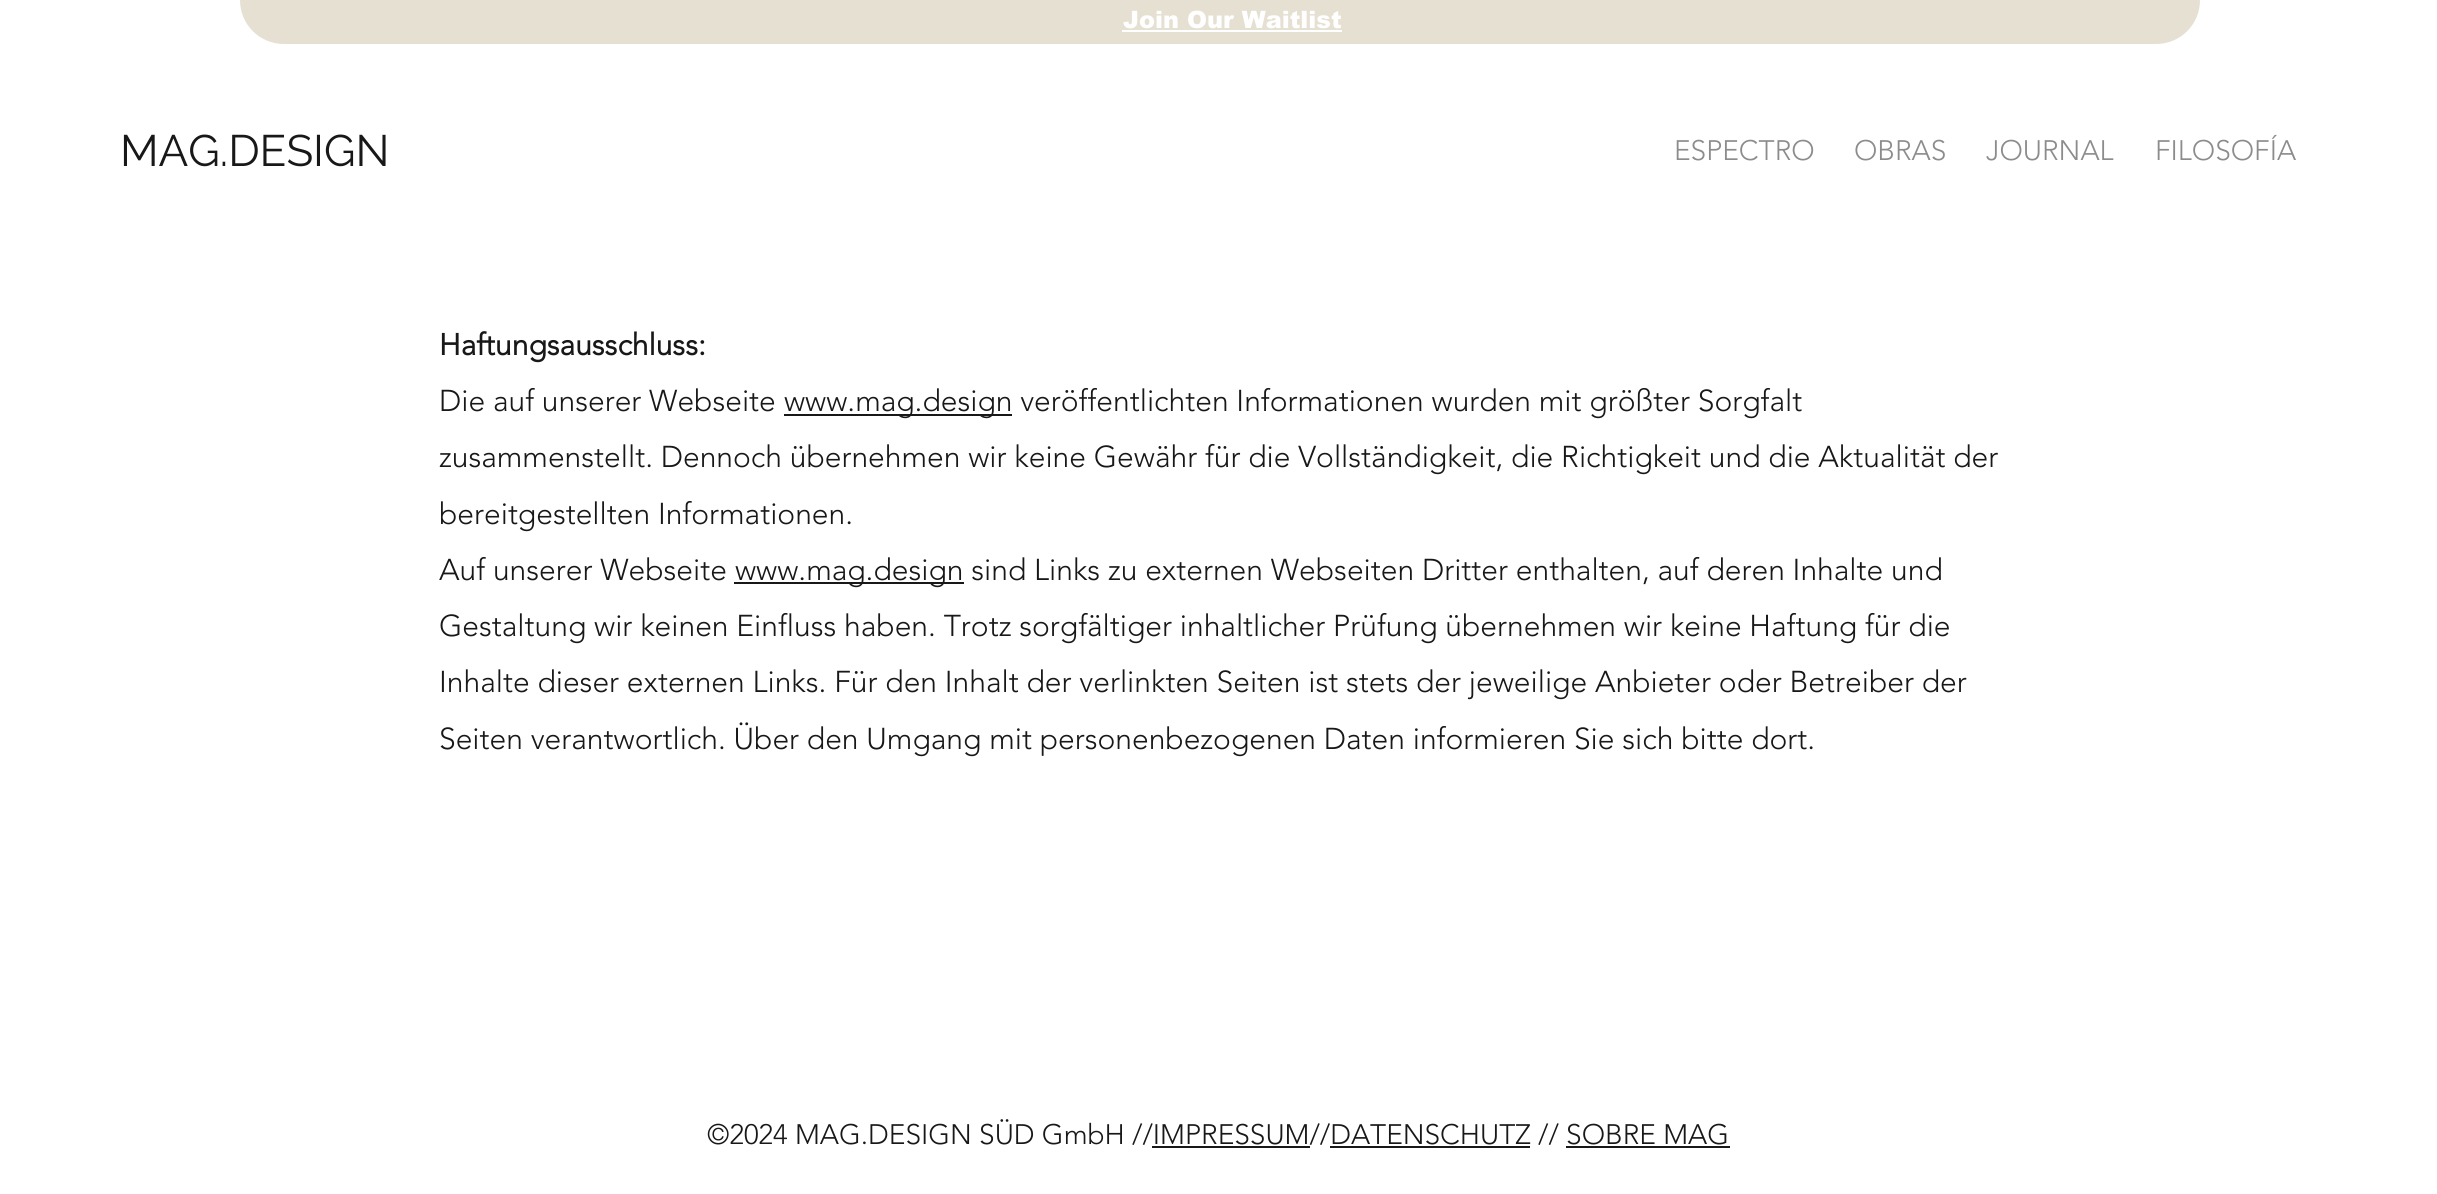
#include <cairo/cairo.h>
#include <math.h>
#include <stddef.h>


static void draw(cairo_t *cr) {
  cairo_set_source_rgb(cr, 1, 1, 1);
  cairo_paint(cr);
  cairo_set_source_rgb(cr, 230 / 255.0, 224 / 255.0, 211 / 255.0);
  cairo_new_path(cr);
  cairo_move_to(cr, 240, 0);
  cairo_line_to(cr, 2200, 0);
  cairo_curve_to(cr, 2200, 24.5, 2180.5, 44, 2156, 44);
  cairo_line_to(cr, 284, 44);
  cairo_curve_to(cr, 259.5, 44, 240, 24.5, 240, 0);
  cairo_close_path(cr);
  cairo_fill(cr);
  cairo_set_source_rgb(cr, 1, 1, 1);
  cairo_rectangle(cr, 1122, 30, 220, 2);
  cairo_fill(cr);
  cairo_set_source_rgb(cr, 24 / 255.0, 24 / 255.0, 24 / 255.0);
  cairo_rectangle(cr, 784, 414, 228, 2);
  cairo_fill(cr);
  cairo_rectangle(cr, 734, 582, 230, 2);
  cairo_fill(cr);
  cairo_rectangle(cr, 1152, 1146, 158, 2);
  cairo_fill(cr);
  cairo_rectangle(cr, 1330, 1146, 200, 2);
  cairo_fill(cr);
  cairo_rectangle(cr, 1566, 1146, 164, 2);
  cairo_fill(cr);
  cairo_select_font_face(cr, "arial Black", CAIRO_FONT_SLANT_NORMAL, CAIRO_FONT_WEIGHT_NORMAL);
  cairo_set_font_size(cr, 24);
  cairo_set_source_rgb(cr, 1, 1, 1);
  cairo_move_to(cr, 1123, 28);
  cairo_show_text(cr, "Join Our Waitlist");
  cairo_select_font_face(cr, "Raleway", CAIRO_FONT_SLANT_NORMAL, CAIRO_FONT_WEIGHT_NORMAL);
  cairo_set_font_size(cr, 44);
  cairo_set_source_rgb(cr, 24 / 255.0, 24 / 255.0, 24 / 255.0);
  cairo_move_to(cr, 120, 166);
  cairo_show_text(cr, "MAG.DESIGN");
  cairo_select_font_face(cr, "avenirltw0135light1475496 Light", CAIRO_FONT_SLANT_NORMAL, CAIRO_FONT_WEIGHT_NORMAL);
  cairo_set_font_size(cr, 28);
  cairo_set_source_rgb(cr, 140 / 255.0, 140 / 255.0, 140 / 255.0);
  cairo_move_to(cr, 1674, 160);
  cairo_show_text(cr, "ESPECTRO");
  cairo_move_to(cr, 1854, 160);
  cairo_show_text(cr, "OBRAS");
  cairo_move_to(cr, 1986, 160);
  cairo_show_text(cr, "JOURNAL");
  cairo_move_to(cr, 2155, 160);
  cairo_show_text(cr, "FILOSOFÍA");
  cairo_select_font_face(cr, "avenirltw0135light1475496", CAIRO_FONT_SLANT_NORMAL, CAIRO_FONT_WEIGHT_BOLD);
  cairo_set_font_size(cr, 30);
  cairo_set_source_rgb(cr, 24 / 255.0, 24 / 255.0, 24 / 255.0);
  cairo_move_to(cr, 439, 355);
  cairo_show_text(cr, "Haftungsausschluss:");
  cairo_select_font_face(cr, "avenirltw0135light1475496 Light", CAIRO_FONT_SLANT_NORMAL, CAIRO_FONT_WEIGHT_NORMAL);
  cairo_move_to(cr, 439, 411);
  cairo_show_text(cr, "Die auf unserer Webseite");
  cairo_move_to(cr, 784, 411);
  cairo_show_text(cr, "www.mag.design veröffentlichten Informationen wurden mit größter Sorgfalt");
  cairo_move_to(cr, 439, 467);
  cairo_show_text(cr, "zusammenstellt. Dennoch übernehmen wir keine Gewähr für die Vollständigkeit, die Richtigkeit und die Aktualität der");
  cairo_move_to(cr, 439, 524);
  cairo_show_text(cr, "bereitgestellten Informationen.");
  cairo_move_to(cr, 439, 580);
  cairo_show_text(cr, "Auf unserer Webseite");
  cairo_move_to(cr, 735, 580);
  cairo_show_text(cr, "www.mag.design sind Links zu externen Webseiten Dritter enthalten, auf deren Inhalte und");
  cairo_move_to(cr, 439, 636);
  cairo_show_text(cr, "Gestaltung wir keinen Einfluss haben. Trotz sorgfältiger inhaltlicher Prüfung übernehmen wir keine Haftung für die");
  cairo_move_to(cr, 439, 692);
  cairo_show_text(cr, "Inhalte dieser externen Links. Für den Inhalt der verlinkten Seiten ist stets der jeweilige Anbieter oder Betreiber der");
  cairo_move_to(cr, 439, 749);
  cairo_show_text(cr, "Seiten verantwortlich. Über den Umgang mit personenbezogenen Daten informieren Sie sich bitte dort.");
  cairo_set_font_size(cr, 28);
  cairo_move_to(cr, 707, 1144);
  cairo_show_text(cr, "©2024 MAG.DESIGN SÜD GmbH //IMPRESSUM//DATENSCHUTZ // SOBRE MAG");
}

int main(void) {
  cairo_surface_t *surface = cairo_image_surface_create(CAIRO_FORMAT_RGB24, 2437, 1194);
  cairo_t *cr = cairo_create(surface);
  cairo_font_options_t *options = cairo_font_options_create();
  cairo_font_options_set_hint_metrics(options, CAIRO_HINT_METRICS_OFF);
  cairo_font_options_set_hint_style(options, CAIRO_HINT_STYLE_NONE);
  cairo_set_font_options(cr, options);
  cairo_set_miter_limit(cr, 4);
  draw(cr);
  cairo_surface_write_to_png(surface, "out.png");
  cairo_font_options_destroy(options);
  cairo_destroy(cr);
  cairo_surface_destroy(surface);
  return 0;
}
